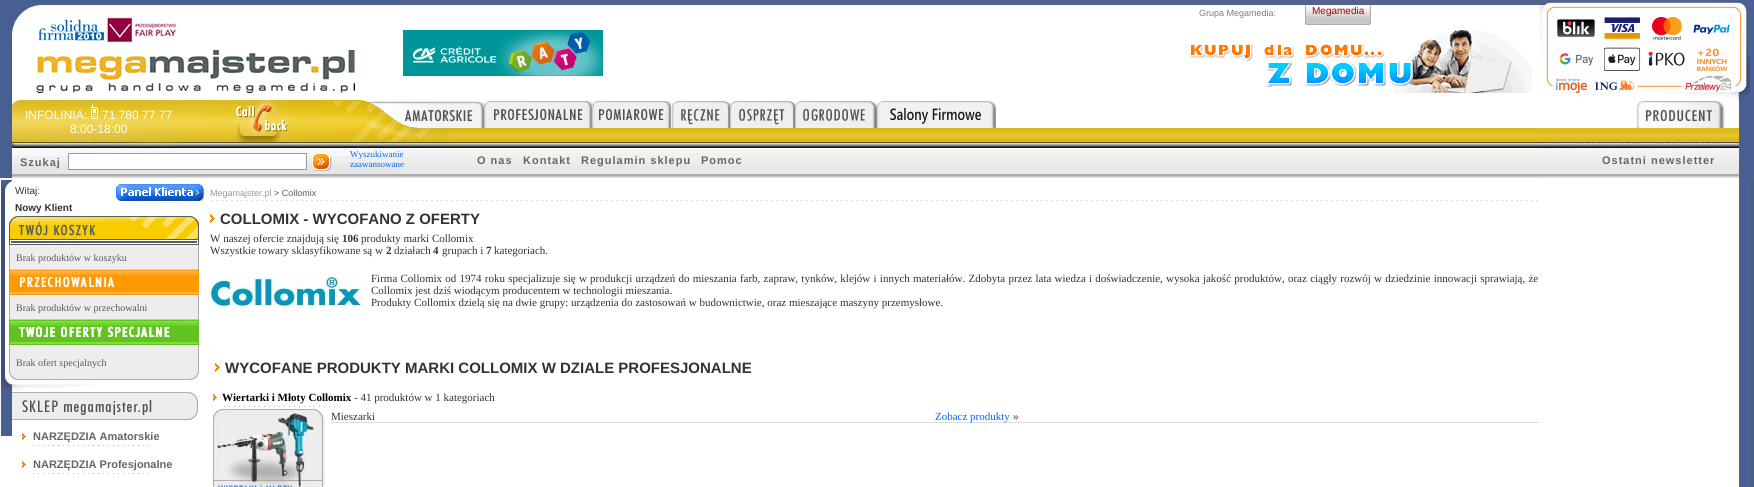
#include <cairo/cairo.h>
#include <math.h>
#include <stddef.h>


static void draw_spaced(cairo_t *cr, double x, double y, const char *s, double letter, double word) {
  cairo_move_to(cr, x, y);
  while (*s) {
    char ch[5] = {0};
    int n = 0;
    do ch[n++] = *s++; while ((*s & 0xC0) == 0x80);
    cairo_show_text(cr, ch);
    cairo_rel_move_to(cr, letter + word * (*ch == ' '), 0);
  }
}

static void draw_image(cairo_t *cr, const char *path, double x, double y, double w, double h) {
  cairo_surface_t *image = cairo_image_surface_create_from_png(path);
  cairo_save(cr);
  cairo_set_source_surface(cr, image, x, y);
  cairo_rectangle(cr, x, y, w, h);
  cairo_fill(cr);
  cairo_restore(cr);
  cairo_surface_destroy(image);
}

static void draw(cairo_t *cr) {
  cairo_set_source_rgb(cr, 1, 1, 1);
  cairo_paint(cr);
  draw_image(cr, "images/1.png", 1738, 178, 16, 309);
  draw_image(cr, "images/2.png", 399, 0, 1139, 178);
  draw_image(cr, "images/3.png", 1538, 0, 216, 178);
  draw_image(cr, "images/4.png", 0, 0, 399, 178);
  draw_image(cr, "images/5.png", 1305, 5, 66, 20);
  draw_image(cr, "images/6.png", 403, 30, 200, 46);
  draw_image(cr, "images/7.png", 1188, 30, 346, 63);
  draw_image(cr, "images/8.png", 1637, 100, 102, 28);
  draw_image(cr, "images/9.png", 0, 100, 450, 48);
  draw_image(cr, "images/10.png", 91, 104, 7, 15);
  draw_image(cr, "images/11.png", 235, 100, 54, 42);
  draw_image(cr, "images/12.png", 368, 100, 116, 28);
  draw_image(cr, "images/13.png", 484, 101, 108, 27);
  draw_image(cr, "images/14.png", 592, 101, 79, 27);
  draw_image(cr, "images/15.png", 671, 101, 59, 27);
  draw_image(cr, "images/16.png", 730, 101, 65, 27);
  draw_image(cr, "images/17.png", 795, 101, 82, 27);
  draw_image(cr, "images/18.png", 877, 101, 119, 27);
  draw_image(cr, "images/19.png", 1, 180, 11, 34);
  draw_image(cr, "images/20.png", 116, 184, 88, 17);
  draw_image(cr, "images/21.png", 1, 214, 198, 55);
  draw_image(cr, "images/22.png", 9, 214, 190, 31);
  draw_image(cr, "images/23.png", 1, 269, 198, 50);
  draw_image(cr, "images/24.png", 5, 269, 196, 26);
  draw_image(cr, "images/25.png", 1, 319, 198, 53);
  draw_image(cr, "images/26.png", 5, 319, 196, 26);
  draw_image(cr, "images/27.png", 1, 372, 200, 20);
  draw_image(cr, "images/28.png", 1, 392, 197, 44);
  draw_image(cr, "images/29.png", 22, 433, 127, 13);
  draw_image(cr, "images/29.png", 22, 461, 127, 13);
  draw_image(cr, "images/30.png", 211, 200, 1327, 1);
  draw_image(cr, "images/31.png", 210, 214, 5, 9);
  draw_image(cr, "images/32.png", 211, 277, 150, 29);
  draw_image(cr, "images/31.png", 215, 363, 5, 9);
  draw_image(cr, "images/29.png", 213, 394, 127, 13);
  draw_image(cr, "images/33.png", 211, 409, 114, 78);
  cairo_set_source_rgb(cr, 221 / 255.0, 221 / 255.0, 221 / 255.0);
  cairo_rectangle(cr, 331, 422, 1208, 1);
  cairo_fill(cr);
  cairo_set_source_rgb(cr, 1, 1, 1);
  cairo_rectangle(cr, 68.5, 153.5, 238, 16);
  cairo_fill_preserve(cr);
  cairo_set_source_rgb(cr, 153 / 255.0, 153 / 255.0, 153 / 255.0);
  cairo_set_line_width(cr, 1);
  cairo_stroke(cr);
  draw_image(cr, "images/34.png", 312, 153, 20, 18);
  cairo_select_font_face(cr, "Liberation Sans", CAIRO_FONT_SLANT_NORMAL, CAIRO_FONT_WEIGHT_NORMAL);
  cairo_set_font_size(cr, 9);
  cairo_set_source_rgb(cr, 124 / 255.0, 124 / 255.0, 124 / 255.0);
  cairo_move_to(cr, 1199, 16);
  cairo_show_text(cr, "Grupa Megamedia:");
  cairo_set_font_size(cr, 10);
  cairo_set_source_rgb(cr, 170 / 255.0, 0, 0);
  cairo_move_to(cr, 1312, 14);
  cairo_show_text(cr, "Megamedia");
  cairo_select_font_face(cr, "Liberation Sans", CAIRO_FONT_SLANT_NORMAL, CAIRO_FONT_WEIGHT_BOLD);
  cairo_set_font_size(cr, 11);
  cairo_set_source_rgb(cr, 102 / 255.0, 102 / 255.0, 102 / 255.0);
  draw_spaced(cr, 1602, 164, "Ostatni newsletter", 1, 0);
  cairo_select_font_face(cr, "Liberation Sans", CAIRO_FONT_SLANT_NORMAL, CAIRO_FONT_WEIGHT_NORMAL);
  cairo_set_font_size(cr, 12);
  cairo_set_source_rgb(cr, 1, 1, 1);
  cairo_move_to(cr, 25, 119);
  cairo_show_text(cr, "INFOLINIA:");
  cairo_move_to(cr, 102, 119);
  cairo_show_text(cr, "71 780 77 77");
  cairo_move_to(cr, 70, 133);
  cairo_show_text(cr, "8:00-18:00");
  cairo_set_font_size(cr, 10);
  cairo_set_source_rgb(cr, 51 / 255.0, 51 / 255.0, 51 / 255.0);
  cairo_move_to(cr, 15, 194);
  cairo_show_text(cr, "Witaj:");
  cairo_select_font_face(cr, "Liberation Sans", CAIRO_FONT_SLANT_NORMAL, CAIRO_FONT_WEIGHT_BOLD);
  cairo_move_to(cr, 15, 211);
  cairo_show_text(cr, "Nowy Klient");
  cairo_select_font_face(cr, "Liberation Serif", CAIRO_FONT_SLANT_NORMAL, CAIRO_FONT_WEIGHT_NORMAL);
  cairo_set_source_rgb(cr, 89 / 255.0, 89 / 255.0, 89 / 255.0);
  cairo_move_to(cr, 16, 261);
  cairo_show_text(cr, "Brak produktów w koszyku");
  cairo_move_to(cr, 16, 311);
  cairo_show_text(cr, "Brak produktów w przechowalni");
  cairo_move_to(cr, 16, 366);
  cairo_show_text(cr, "Brak ofert specjalnych");
  cairo_select_font_face(cr, "Liberation Sans", CAIRO_FONT_SLANT_NORMAL, CAIRO_FONT_WEIGHT_BOLD);
  cairo_set_font_size(cr, 11);
  cairo_set_source_rgb(cr, 102 / 255.0, 102 / 255.0, 102 / 255.0);
  cairo_move_to(cr, 33, 440);
  cairo_show_text(cr, "NARZĘDZIA Amatorskie");
  cairo_move_to(cr, 33, 468);
  cairo_show_text(cr, "NARZĘDZIA Profesjonalne");
  cairo_select_font_face(cr, "Liberation Sans", CAIRO_FONT_SLANT_NORMAL, CAIRO_FONT_WEIGHT_NORMAL);
  cairo_set_font_size(cr, 9);
  cairo_set_source_rgb(cr, 153 / 255.0, 153 / 255.0, 153 / 255.0);
  cairo_move_to(cr, 210, 196);
  cairo_show_text(cr, "Megamajster.pl");
  cairo_set_source_rgb(cr, 89 / 255.0, 89 / 255.0, 89 / 255.0);
  cairo_move_to(cr, 274, 196);
  cairo_show_text(cr, "> Collomix");
  cairo_select_font_face(cr, "Liberation Sans", CAIRO_FONT_SLANT_NORMAL, CAIRO_FONT_WEIGHT_BOLD);
  cairo_set_font_size(cr, 15);
  cairo_set_source_rgb(cr, 51 / 255.0, 51 / 255.0, 51 / 255.0);
  cairo_move_to(cr, 220, 224);
  cairo_show_text(cr, "COLLOMIX - WYCOFANO Z OFERTY");
  cairo_select_font_face(cr, "Liberation Serif", CAIRO_FONT_SLANT_NORMAL, CAIRO_FONT_WEIGHT_NORMAL);
  cairo_set_font_size(cr, 11);
  cairo_move_to(cr, 210, 242);
  cairo_show_text(cr, "W naszej ofercie znajdują się");
  cairo_select_font_face(cr, "Liberation Serif", CAIRO_FONT_SLANT_NORMAL, CAIRO_FONT_WEIGHT_BOLD);
  cairo_move_to(cr, 342, 242);
  cairo_show_text(cr, "106");
  cairo_select_font_face(cr, "Liberation Serif", CAIRO_FONT_SLANT_NORMAL, CAIRO_FONT_WEIGHT_NORMAL);
  cairo_move_to(cr, 361, 242);
  cairo_show_text(cr, "produkty marki Collomix");
  cairo_move_to(cr, 210, 254);
  cairo_show_text(cr, "Wszystkie towary sklasyfikowane są w");
  cairo_select_font_face(cr, "Liberation Serif", CAIRO_FONT_SLANT_NORMAL, CAIRO_FONT_WEIGHT_BOLD);
  cairo_move_to(cr, 386, 254);
  cairo_show_text(cr, "2");
  cairo_select_font_face(cr, "Liberation Serif", CAIRO_FONT_SLANT_NORMAL, CAIRO_FONT_WEIGHT_NORMAL);
  cairo_move_to(cr, 394, 254);
  cairo_show_text(cr, "działach");
  cairo_select_font_face(cr, "Liberation Serif", CAIRO_FONT_SLANT_NORMAL, CAIRO_FONT_WEIGHT_BOLD);
  cairo_move_to(cr, 433, 254);
  cairo_show_text(cr, "4");
  cairo_select_font_face(cr, "Liberation Serif", CAIRO_FONT_SLANT_NORMAL, CAIRO_FONT_WEIGHT_NORMAL);
  cairo_move_to(cr, 442, 254);
  cairo_show_text(cr, "grupach i");
  cairo_select_font_face(cr, "Liberation Serif", CAIRO_FONT_SLANT_NORMAL, CAIRO_FONT_WEIGHT_BOLD);
  cairo_move_to(cr, 486, 254);
  cairo_show_text(cr, "7");
  cairo_select_font_face(cr, "Liberation Serif", CAIRO_FONT_SLANT_NORMAL, CAIRO_FONT_WEIGHT_NORMAL);
  cairo_move_to(cr, 494, 254);
  cairo_show_text(cr, "kategoriach.");
  draw_spaced(cr, 371, 282, "Firma Collomix od 1974 roku specjalizuje się w produkcji urządzeń do mieszania farb, zapraw, tynków, klejów i innych materiałów. Zdobyta przez lata wiedza i doświadczenie, wysoka jakość produktów, oraz ciągły rozwój w dziedzinie innowacji sprawiają, że", 0, 0.5);
  cairo_move_to(cr, 371, 294);
  cairo_show_text(cr, "Collomix jest dziś wiodącym producentem w technologii mieszania.");
  cairo_move_to(cr, 371, 306);
  cairo_show_text(cr, "Produkty Collomix dzielą się na dwie grupy: urządzenia do zastosowań w budownictwie, oraz mieszające maszyny przemysłowe.");
  cairo_select_font_face(cr, "Liberation Sans", CAIRO_FONT_SLANT_NORMAL, CAIRO_FONT_WEIGHT_BOLD);
  cairo_set_font_size(cr, 15);
  cairo_move_to(cr, 225, 373);
  cairo_show_text(cr, "WYCOFANE PRODUKTY MARKI COLLOMIX W DZIALE PROFESJONALNE");
  cairo_select_font_face(cr, "Liberation Serif", CAIRO_FONT_SLANT_NORMAL, CAIRO_FONT_WEIGHT_BOLD);
  cairo_set_font_size(cr, 11);
  cairo_set_source_rgb(cr, 0, 0, 0);
  cairo_move_to(cr, 222, 401);
  cairo_show_text(cr, "Wiertarki i Młoty Collomix");
  cairo_select_font_face(cr, "Liberation Serif", CAIRO_FONT_SLANT_NORMAL, CAIRO_FONT_WEIGHT_NORMAL);
  cairo_set_source_rgb(cr, 51 / 255.0, 51 / 255.0, 51 / 255.0);
  cairo_move_to(cr, 354, 401);
  cairo_show_text(cr, "- 41 produktów w 1 kategoriach");
  cairo_move_to(cr, 331, 420);
  cairo_show_text(cr, "Mieszarki");
  cairo_set_source_rgb(cr, 0, 102 / 255.0, 1);
  cairo_move_to(cr, 935, 420);
  cairo_show_text(cr, "Zobacz produkty");
  cairo_select_font_face(cr, "Liberation Sans", CAIRO_FONT_SLANT_NORMAL, CAIRO_FONT_WEIGHT_NORMAL);
  cairo_set_font_size(cr, 10);
  cairo_set_source_rgb(cr, 51 / 255.0, 51 / 255.0, 51 / 255.0);
  cairo_move_to(cr, 1013, 420);
  cairo_show_text(cr, "»");
  cairo_select_font_face(cr, "Liberation Sans", CAIRO_FONT_SLANT_NORMAL, CAIRO_FONT_WEIGHT_BOLD);
  cairo_set_font_size(cr, 11);
  cairo_set_source_rgb(cr, 102 / 255.0, 102 / 255.0, 102 / 255.0);
  draw_spaced(cr, 20, 166, "Szukaj", 1, 0);
  cairo_select_font_face(cr, "Liberation Serif", CAIRO_FONT_SLANT_NORMAL, CAIRO_FONT_WEIGHT_NORMAL);
  cairo_set_font_size(cr, 9);
  cairo_set_source_rgb(cr, 0, 102 / 255.0, 1);
  cairo_move_to(cr, 350, 157);
  cairo_show_text(cr, "Wyszukiwanie");
  cairo_move_to(cr, 350, 167);
  cairo_show_text(cr, "zaawansowane");
  cairo_select_font_face(cr, "Liberation Sans", CAIRO_FONT_SLANT_NORMAL, CAIRO_FONT_WEIGHT_BOLD);
  cairo_set_font_size(cr, 11);
  cairo_set_source_rgb(cr, 102 / 255.0, 102 / 255.0, 102 / 255.0);
  draw_spaced(cr, 477, 164, "O nas", 1, 0);
  draw_spaced(cr, 523, 164, "Kontakt", 1, 0);
  draw_spaced(cr, 581, 164, "Regulamin sklepu", 1, 0);
  draw_spaced(cr, 701, 164, "Pomoc", 1, 0);
}

int main(void) {
  cairo_surface_t *surface = cairo_image_surface_create(CAIRO_FORMAT_RGB24, 1754, 487);
  cairo_t *cr = cairo_create(surface);
  cairo_font_options_t *options = cairo_font_options_create();
  cairo_font_options_set_hint_metrics(options, CAIRO_HINT_METRICS_OFF);
  cairo_font_options_set_hint_style(options, CAIRO_HINT_STYLE_NONE);
  cairo_set_font_options(cr, options);
  cairo_set_miter_limit(cr, 4);
  draw(cr);
  cairo_surface_write_to_png(surface, "out.png");
  cairo_font_options_destroy(options);
  cairo_destroy(cr);
  cairo_surface_destroy(surface);
  return 0;
}
